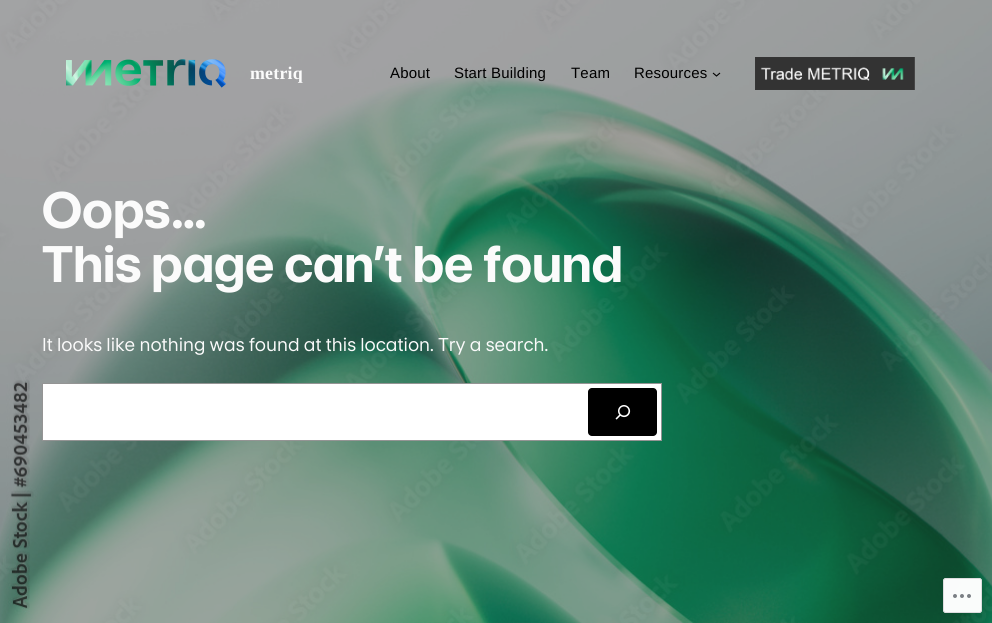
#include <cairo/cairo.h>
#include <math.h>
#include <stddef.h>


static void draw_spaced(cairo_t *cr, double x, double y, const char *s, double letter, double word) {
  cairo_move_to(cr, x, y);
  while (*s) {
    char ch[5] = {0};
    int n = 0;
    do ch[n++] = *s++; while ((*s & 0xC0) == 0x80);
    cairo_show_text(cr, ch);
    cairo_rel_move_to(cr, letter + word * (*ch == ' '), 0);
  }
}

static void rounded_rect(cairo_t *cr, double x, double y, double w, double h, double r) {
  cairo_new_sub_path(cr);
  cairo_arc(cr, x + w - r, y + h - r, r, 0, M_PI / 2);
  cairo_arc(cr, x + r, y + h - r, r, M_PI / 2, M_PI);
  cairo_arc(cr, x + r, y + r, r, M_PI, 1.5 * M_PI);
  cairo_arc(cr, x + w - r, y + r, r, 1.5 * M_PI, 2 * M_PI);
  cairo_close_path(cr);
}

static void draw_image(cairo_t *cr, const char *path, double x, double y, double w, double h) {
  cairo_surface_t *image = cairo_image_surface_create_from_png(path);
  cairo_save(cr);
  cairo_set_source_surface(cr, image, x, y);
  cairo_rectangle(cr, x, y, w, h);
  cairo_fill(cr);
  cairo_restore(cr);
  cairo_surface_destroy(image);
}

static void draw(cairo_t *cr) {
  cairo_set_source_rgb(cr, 1, 1, 1);
  cairo_paint(cr);
  draw_image(cr, "images/1.png", 0, 0, 992, 623);
  draw_image(cr, "images/2.png", 66, 59, 160, 29);
  cairo_new_path(cr);
  cairo_move_to(cr, 713, 73);
  cairo_line_to(cr, 716.5, 76);
  cairo_line_to(cr, 720, 73);
  cairo_set_source_rgb(cr, 0, 0, 0);
  cairo_set_line_width(cr, 1.1);
  cairo_stroke(cr);
  draw_image(cr, "images/3.png", 755, 57, 160, 33);
  cairo_set_source_rgb(cr, 1, 1, 1);
  cairo_rectangle(cr, 42.5, 383.5, 619, 57);
  cairo_fill_preserve(cr);
  cairo_set_source_rgb(cr, 148 / 255.0, 148 / 255.0, 148 / 255.0);
  cairo_set_line_width(cr, 1);
  cairo_stroke(cr);
  cairo_set_source_rgb(cr, 0, 0, 0);
  rounded_rect(cr, 588, 388, 69, 48, 4);
  cairo_fill(cr);
  draw_image(cr, "images/4.png", 615, 405, 16, 15);
  cairo_set_source_rgba(cr, 1, 1, 1, 0.98);
  rounded_rect(cr, 943, 578, 39, 35, 3);
  cairo_fill(cr);
  rounded_rect(cr, 943.5, 578.5, 38, 34, 2.5);
  cairo_set_source_rgba(cr, 220 / 255.0, 220 / 255.0, 222 / 255.0, 0.98);
  cairo_stroke(cr);
  draw_image(cr, "images/5.png", 953, 594, 18, 4);
  cairo_select_font_face(cr, "Liberation Serif", CAIRO_FONT_SLANT_NORMAL, CAIRO_FONT_WEIGHT_BOLD);
  cairo_set_font_size(cr, 17.9);
  cairo_set_source_rgb(cr, 251 / 255.0, 251 / 255.0, 251 / 255.0);
  draw_spaced(cr, 250, 79, "metriq", 0.2, 0);
  cairo_select_font_face(cr, "Liberation Sans", CAIRO_FONT_SLANT_NORMAL, CAIRO_FONT_WEIGHT_NORMAL);
  cairo_set_font_size(cr, 15);
  cairo_set_source_rgb(cr, 0, 0, 0);
  draw_spaced(cr, 390, 78, "About", 0.2, 0);
  draw_spaced(cr, 454, 78, "Start Building", 0.2, 0);
  draw_spaced(cr, 571, 78, "Team", 0.2, 0);
  draw_spaced(cr, 634, 78, "Resources", 0.2, 0);
  cairo_select_font_face(cr, "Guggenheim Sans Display", CAIRO_FONT_SLANT_NORMAL, CAIRO_FONT_WEIGHT_BOLD);
  cairo_set_font_size(cr, 49.4);
  cairo_set_source_rgb(cr, 251 / 255.0, 251 / 255.0, 251 / 255.0);
  draw_spaced(cr, 42, 228, "Oops…", 0.4, 0);
  draw_spaced(cr, 42, 282, "This page can’t be found", 0.4, 0);
  cairo_select_font_face(cr, "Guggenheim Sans", CAIRO_FONT_SLANT_NORMAL, CAIRO_FONT_WEIGHT_NORMAL);
  cairo_set_font_size(cr, 17.9);
  cairo_move_to(cr, 42, 351);
  cairo_show_text(cr, "It looks like nothing was found at this location. Try a search.");
}

int main(void) {
  cairo_surface_t *surface = cairo_image_surface_create(CAIRO_FORMAT_RGB24, 992, 623);
  cairo_t *cr = cairo_create(surface);
  cairo_font_options_t *options = cairo_font_options_create();
  cairo_font_options_set_hint_metrics(options, CAIRO_HINT_METRICS_OFF);
  cairo_font_options_set_hint_style(options, CAIRO_HINT_STYLE_NONE);
  cairo_set_font_options(cr, options);
  cairo_set_miter_limit(cr, 4);
  draw(cr);
  cairo_surface_write_to_png(surface, "out.png");
  cairo_font_options_destroy(options);
  cairo_destroy(cr);
  cairo_surface_destroy(surface);
  return 0;
}
